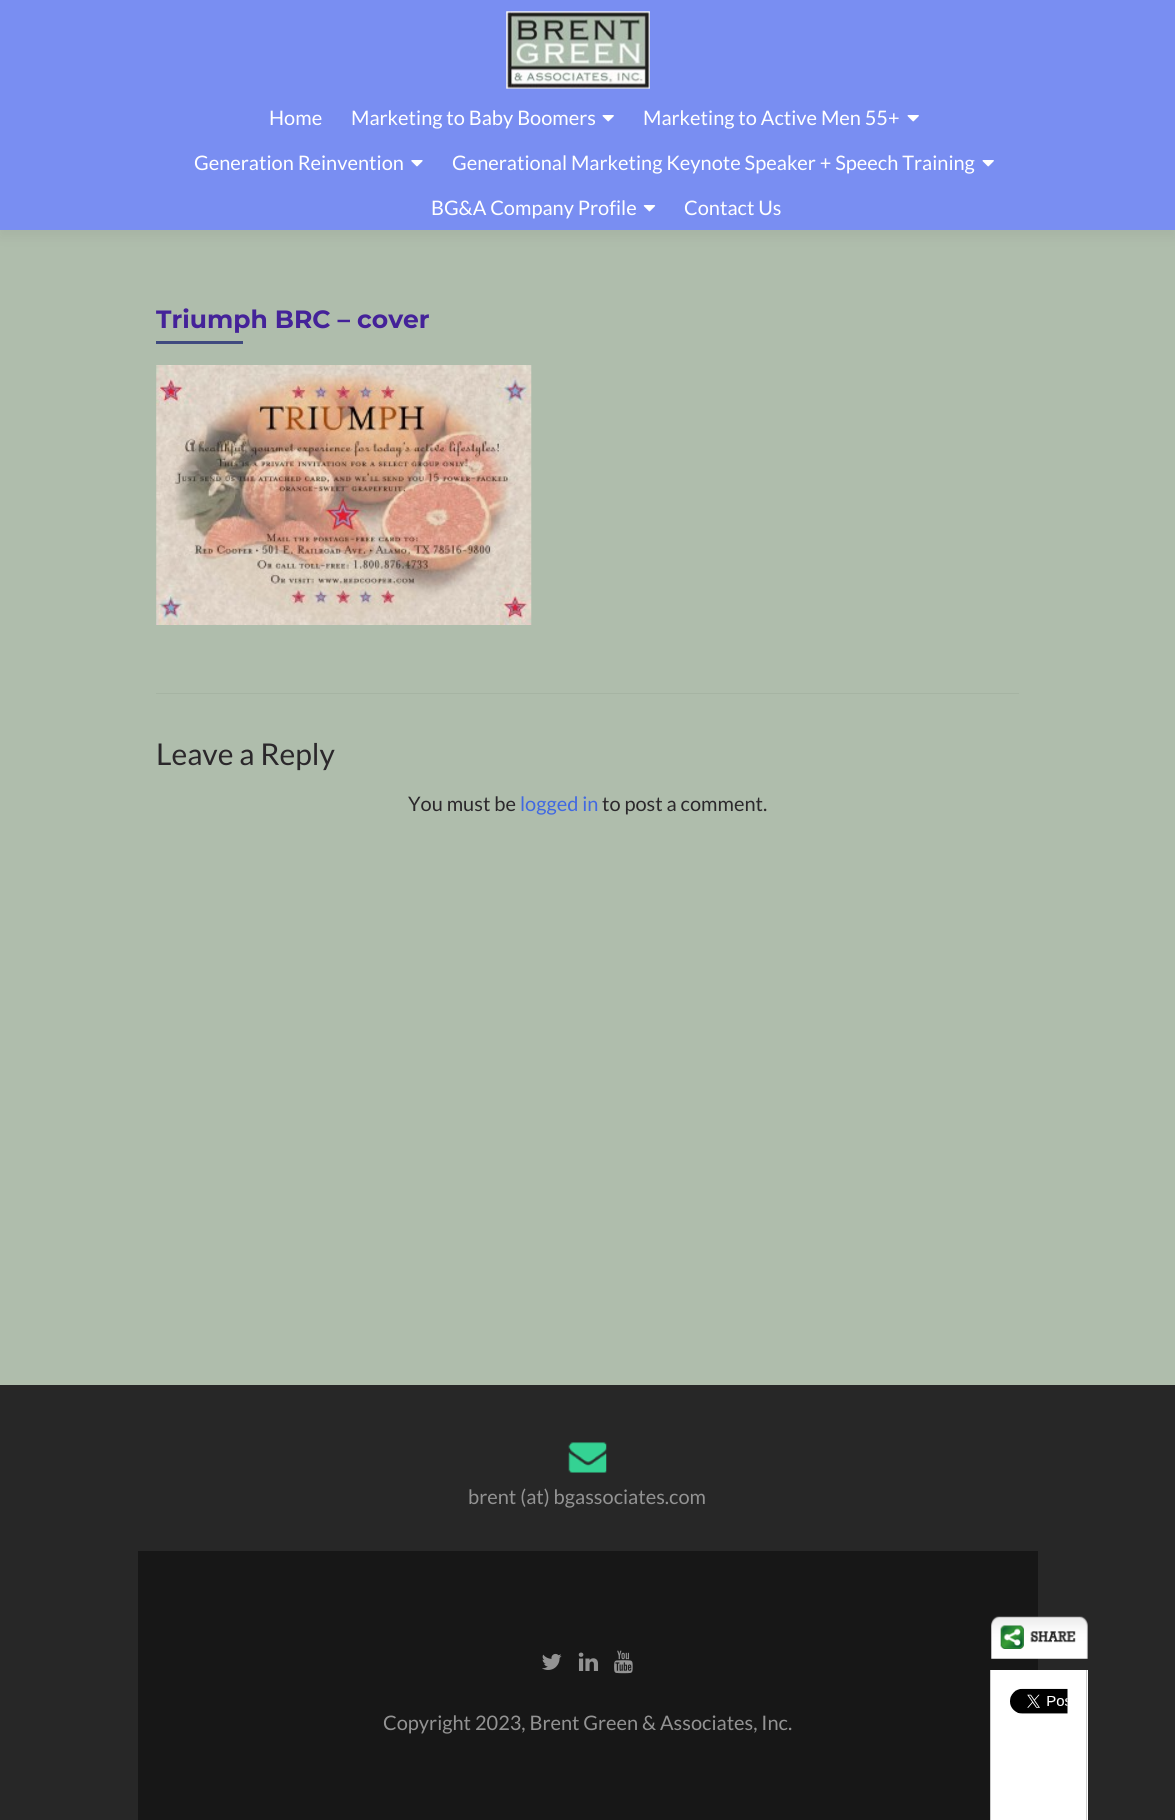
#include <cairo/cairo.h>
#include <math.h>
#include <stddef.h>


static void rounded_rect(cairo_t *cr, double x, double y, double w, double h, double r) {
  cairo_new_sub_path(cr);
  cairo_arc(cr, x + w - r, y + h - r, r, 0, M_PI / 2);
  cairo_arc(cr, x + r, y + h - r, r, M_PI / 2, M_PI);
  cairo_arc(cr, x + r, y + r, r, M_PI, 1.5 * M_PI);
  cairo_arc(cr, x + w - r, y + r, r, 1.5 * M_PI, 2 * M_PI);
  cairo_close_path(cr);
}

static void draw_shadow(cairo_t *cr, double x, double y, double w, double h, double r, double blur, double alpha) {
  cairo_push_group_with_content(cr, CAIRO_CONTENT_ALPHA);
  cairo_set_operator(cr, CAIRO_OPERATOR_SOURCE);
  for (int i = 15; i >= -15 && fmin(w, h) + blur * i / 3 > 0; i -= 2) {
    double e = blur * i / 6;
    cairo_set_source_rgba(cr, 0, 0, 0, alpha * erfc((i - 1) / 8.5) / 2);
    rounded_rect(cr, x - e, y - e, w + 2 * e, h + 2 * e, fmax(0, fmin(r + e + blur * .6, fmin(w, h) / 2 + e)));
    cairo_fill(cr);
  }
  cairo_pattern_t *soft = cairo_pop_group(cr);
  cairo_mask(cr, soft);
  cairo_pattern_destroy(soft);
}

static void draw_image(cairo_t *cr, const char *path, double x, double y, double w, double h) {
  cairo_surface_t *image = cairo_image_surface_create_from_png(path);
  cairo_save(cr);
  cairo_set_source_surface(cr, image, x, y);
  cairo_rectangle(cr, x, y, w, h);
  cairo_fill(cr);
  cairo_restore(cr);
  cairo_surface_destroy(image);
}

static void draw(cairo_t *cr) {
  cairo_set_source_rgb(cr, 175 / 255.0, 189 / 255.0, 172 / 255.0);
  cairo_paint(cr);
  cairo_set_source_rgb(cr, 50 / 255.0, 50 / 255.0, 50 / 255.0);
  draw_shadow(cr, 0, 6, 1175, 230, 0, 7, 0.08);
  cairo_set_source_rgb(cr, 121 / 255.0, 142 / 255.0, 242 / 255.0);
  cairo_rectangle(cr, 0, 0, 1175, 230);
  cairo_fill(cr);
  draw_image(cr, "images/1.png", 506, 11, 144, 78);
  draw_image(cr, "images/2.png", 602, 115, 12, 7);
  draw_image(cr, "images/2.png", 907, 115, 12, 7);
  draw_image(cr, "images/3.png", 411, 160, 12, 7);
  draw_image(cr, "images/2.png", 982, 160, 12, 7);
  draw_image(cr, "images/4.png", 643, 205, 13, 7);
  cairo_set_source_rgb(cr, 166 / 255.0, 180 / 255.0, 163 / 255.0);
  cairo_rectangle(cr, 156, 693, 863, 1);
  cairo_fill(cr);
  cairo_set_source_rgb(cr, 63 / 255.0, 74 / 255.0, 127 / 255.0);
  cairo_rectangle(cr, 156, 341, 87, 3);
  cairo_fill(cr);
  draw_image(cr, "images/5.png", 156, 365, 376, 260);
  cairo_set_source_rgb(cr, 39 / 255.0, 39 / 255.0, 39 / 255.0);
  cairo_rectangle(cr, 0, 1385, 1175, 435);
  cairo_fill(cr);
  draw_image(cr, "images/6.png", 568, 1442, 39, 31);
  cairo_set_source_rgb(cr, 23 / 255.0, 23 / 255.0, 23 / 255.0);
  cairo_rectangle(cr, 138, 1551, 900, 269);
  cairo_fill(cr);
  draw_image(cr, "images/7.png", 542, 1653, 20, 17);
  draw_image(cr, "images/8.png", 578, 1652, 21, 19);
  draw_image(cr, "images/9.png", 614, 1650, 19, 24);
  draw_image(cr, "images/10.png", 991, 1616, 97, 43);
  cairo_set_source_rgb(cr, 1, 1, 1);
  cairo_rectangle(cr, 991, 1670, 97, 150);
  cairo_fill(cr);
  cairo_set_source_rgb(cr, 204 / 255.0, 204 / 255.0, 204 / 255.0);
  cairo_rectangle(cr, 1086, 1670, 1, 150);
  cairo_fill(cr);
  cairo_rectangle(cr, 990, 1670, 1, 150);
  cairo_fill(cr);
  draw_image(cr, "images/11.png", 1010, 1688, 58, 26);
  cairo_select_font_face(cr, "Lato", CAIRO_FONT_SLANT_NORMAL, CAIRO_FONT_WEIGHT_NORMAL);
  cairo_set_font_size(cr, 20);
  cairo_set_source_rgb(cr, 1, 1, 1);
  cairo_move_to(cr, 269, 125);
  cairo_show_text(cr, "Home");
  cairo_move_to(cr, 351, 125);
  cairo_show_text(cr, "Marketing to Baby Boomers");
  cairo_move_to(cr, 643, 125);
  cairo_show_text(cr, "Marketing to Active Men 55+");
  cairo_move_to(cr, 194, 170);
  cairo_show_text(cr, "Generation Reinvention");
  cairo_move_to(cr, 452, 170);
  cairo_show_text(cr, "Generational Marketing Keynote Speaker + Speech Training");
  cairo_move_to(cr, 431, 215);
  cairo_show_text(cr, "BG&A Company Profile");
  cairo_move_to(cr, 684, 215);
  cairo_show_text(cr, "Contact Us");
  cairo_select_font_face(cr, "Montserrat Thin", CAIRO_FONT_SLANT_NORMAL, CAIRO_FONT_WEIGHT_NORMAL);
  cairo_set_font_size(cr, 25);
  cairo_set_source_rgb(cr, 68 / 255.0, 34 / 255.0, 153 / 255.0);
  cairo_move_to(cr, 156, 328);
  cairo_show_text(cr, "Triumph BRC – cover");
  cairo_select_font_face(cr, "Lato", CAIRO_FONT_SLANT_NORMAL, CAIRO_FONT_WEIGHT_NORMAL);
  cairo_set_font_size(cr, 30);
  cairo_set_source_rgb(cr, 43 / 255.0, 40 / 255.0, 43 / 255.0);
  cairo_move_to(cr, 156, 765);
  cairo_show_text(cr, "Leave a Reply");
  cairo_set_font_size(cr, 20);
  cairo_move_to(cr, 408, 811);
  cairo_show_text(cr, "You must be");
  cairo_set_source_rgb(cr, 65 / 255.0, 105 / 255.0, 225 / 255.0);
  cairo_move_to(cr, 520, 811);
  cairo_show_text(cr, "logged in");
  cairo_set_source_rgb(cr, 43 / 255.0, 40 / 255.0, 43 / 255.0);
  cairo_move_to(cr, 602, 811);
  cairo_show_text(cr, "to post a comment.");
  cairo_set_source_rgb(cr, 147 / 255.0, 147 / 255.0, 147 / 255.0);
  cairo_move_to(cr, 468, 1504);
  cairo_show_text(cr, "brent (at) bgassociates.com");
  cairo_move_to(cr, 383, 1730);
  cairo_show_text(cr, "Copyright 2023, Brent Green & Associates, Inc.");
}

int main(void) {
  cairo_surface_t *surface = cairo_image_surface_create(CAIRO_FORMAT_RGB24, 1175, 1820);
  cairo_t *cr = cairo_create(surface);
  cairo_font_options_t *options = cairo_font_options_create();
  cairo_font_options_set_hint_metrics(options, CAIRO_HINT_METRICS_OFF);
  cairo_font_options_set_hint_style(options, CAIRO_HINT_STYLE_NONE);
  cairo_set_font_options(cr, options);
  cairo_set_miter_limit(cr, 4);
  draw(cr);
  cairo_surface_write_to_png(surface, "out.png");
  cairo_font_options_destroy(options);
  cairo_destroy(cr);
  cairo_surface_destroy(surface);
  return 0;
}
